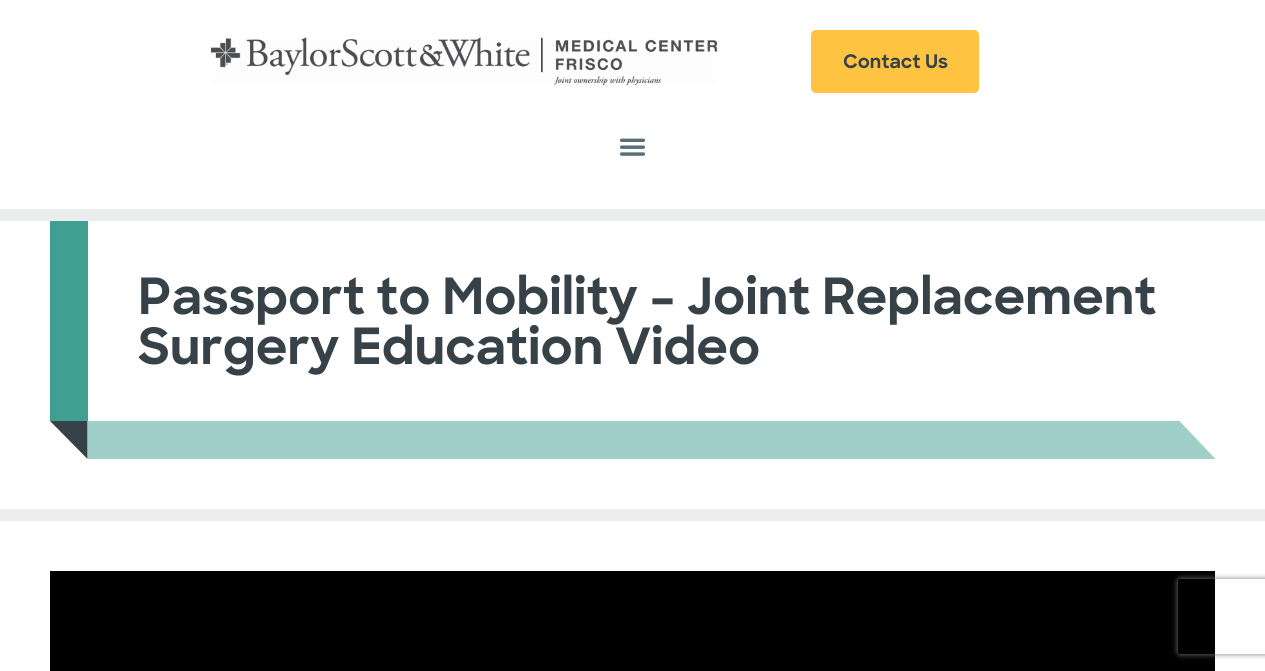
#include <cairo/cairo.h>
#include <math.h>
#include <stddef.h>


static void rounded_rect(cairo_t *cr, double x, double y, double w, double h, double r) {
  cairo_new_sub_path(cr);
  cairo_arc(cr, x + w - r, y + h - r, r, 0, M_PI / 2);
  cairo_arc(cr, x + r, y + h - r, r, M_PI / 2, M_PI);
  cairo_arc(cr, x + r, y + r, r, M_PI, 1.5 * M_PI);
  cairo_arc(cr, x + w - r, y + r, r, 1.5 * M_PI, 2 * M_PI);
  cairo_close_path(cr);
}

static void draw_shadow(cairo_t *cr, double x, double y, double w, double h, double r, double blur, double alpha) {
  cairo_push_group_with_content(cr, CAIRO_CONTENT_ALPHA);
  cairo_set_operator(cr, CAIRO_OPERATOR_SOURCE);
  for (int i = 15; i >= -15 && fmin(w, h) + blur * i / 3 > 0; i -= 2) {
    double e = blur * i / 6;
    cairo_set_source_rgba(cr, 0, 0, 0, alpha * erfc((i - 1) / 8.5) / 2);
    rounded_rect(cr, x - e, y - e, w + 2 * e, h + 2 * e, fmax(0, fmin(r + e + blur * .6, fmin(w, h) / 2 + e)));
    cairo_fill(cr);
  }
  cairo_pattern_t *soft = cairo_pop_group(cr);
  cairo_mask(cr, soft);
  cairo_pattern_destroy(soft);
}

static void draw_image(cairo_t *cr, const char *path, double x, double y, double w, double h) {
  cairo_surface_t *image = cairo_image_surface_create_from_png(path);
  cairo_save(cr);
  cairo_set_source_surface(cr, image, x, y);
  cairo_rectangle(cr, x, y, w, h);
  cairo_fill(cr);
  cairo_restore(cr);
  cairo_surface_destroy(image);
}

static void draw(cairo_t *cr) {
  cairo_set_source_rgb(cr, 236 / 255.0, 237 / 255.0, 237 / 255.0);
  cairo_paint(cr);
  cairo_set_source_rgb(cr, 1, 1, 1);
  cairo_rectangle(cr, 0, 0, 1265, 209);
  cairo_fill(cr);
  draw_image(cr, "images/1.png", 211, 37, 507, 49);
  cairo_set_source_rgb(cr, 1, 195 / 255.0, 66 / 255.0);
  rounded_rect(cr, 811.5, 30.5, 167, 62, 4.5);
  cairo_fill_preserve(cr);
  cairo_set_line_width(cr, 1);
  cairo_stroke(cr);
  draw_image(cr, "images/2.png", 619, 138, 27, 18);
  cairo_set_source_rgb(cr, 1, 1, 1);
  cairo_rectangle(cr, 0, 221, 1265, 288);
  cairo_fill(cr);
  cairo_set_source_rgb(cr, 63 / 255.0, 159 / 255.0, 144 / 255.0);
  cairo_rectangle(cr, 50, 221, 38, 200);
  cairo_fill(cr);
  cairo_set_source_rgb(cr, 54 / 255.0, 66 / 255.0, 72 / 255.0);
  cairo_new_path(cr);
  cairo_move_to(cr, 50, 421);
  cairo_line_to(cr, 87.5, 459);
  cairo_line_to(cr, 87.5, 421);
  cairo_close_path(cr);
  cairo_fill(cr);
  cairo_set_source_rgb(cr, 159 / 255.0, 207 / 255.0, 200 / 255.0);
  cairo_rectangle(cr, 88, 421, 1127, 38);
  cairo_fill(cr);
  cairo_set_source_rgb(cr, 1, 1, 1);
  cairo_new_path(cr);
  cairo_move_to(cr, 1179, 420);
  cairo_line_to(cr, 1216, 420);
  cairo_line_to(cr, 1216, 459.5);
  cairo_line_to(cr, 1179, 420.5);
  cairo_close_path(cr);
  cairo_fill(cr);
  cairo_rectangle(cr, 0, 521, 1265, 150);
  cairo_fill(cr);
  cairo_set_source_rgb(cr, 0, 0, 0);
  cairo_rectangle(cr, 50, 571, 1165, 100);
  cairo_fill(cr);
  cairo_save(cr);
  cairo_set_fill_rule(cr, CAIRO_FILL_RULE_EVEN_ODD);
  cairo_new_path(cr);
  cairo_move_to(cr, 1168, 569);
  cairo_line_to(cr, 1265, 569);
  cairo_line_to(cr, 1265, 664);
  cairo_line_to(cr, 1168, 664);
  cairo_close_path(cr);
  cairo_move_to(cr, 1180.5, 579);
  cairo_line_to(cr, 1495.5, 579);
  cairo_curve_to(cr, 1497, 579, 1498, 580, 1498, 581.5);
  cairo_line_to(cr, 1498, 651.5);
  cairo_curve_to(cr, 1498, 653, 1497, 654, 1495.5, 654);
  cairo_line_to(cr, 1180.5, 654);
  cairo_curve_to(cr, 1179, 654, 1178, 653, 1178, 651.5);
  cairo_line_to(cr, 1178, 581.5);
  cairo_curve_to(cr, 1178, 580, 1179, 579, 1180.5, 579);
  cairo_close_path(cr);
  cairo_clip(cr);
  cairo_set_source_rgb(cr, 128 / 255.0, 128 / 255.0, 128 / 255.0);
  draw_shadow(cr, 1178, 579, 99, 75, 2.5, 3, 1);
  cairo_restore(cr);
  cairo_select_font_face(cr, "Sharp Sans", CAIRO_FONT_SLANT_NORMAL, CAIRO_FONT_WEIGHT_BOLD);
  cairo_set_font_size(cr, 18.75);
  cairo_set_source_rgb(cr, 54 / 255.0, 66 / 255.0, 72 / 255.0);
  cairo_move_to(cr, 843, 68);
  cairo_show_text(cr, "Contact Us");
  cairo_set_font_size(cr, 50);
  cairo_move_to(cr, 138, 314);
  cairo_show_text(cr, "Passport to Mobility – Joint Replacement");
  cairo_move_to(cr, 138, 364);
  cairo_show_text(cr, "Surgery Education Video");
}

int main(void) {
  cairo_surface_t *surface = cairo_image_surface_create(CAIRO_FORMAT_RGB24, 1265, 671);
  cairo_t *cr = cairo_create(surface);
  cairo_font_options_t *options = cairo_font_options_create();
  cairo_font_options_set_hint_metrics(options, CAIRO_HINT_METRICS_OFF);
  cairo_font_options_set_hint_style(options, CAIRO_HINT_STYLE_NONE);
  cairo_set_font_options(cr, options);
  cairo_set_miter_limit(cr, 4);
  draw(cr);
  cairo_surface_write_to_png(surface, "out.png");
  cairo_font_options_destroy(options);
  cairo_destroy(cr);
  cairo_surface_destroy(surface);
  return 0;
}
